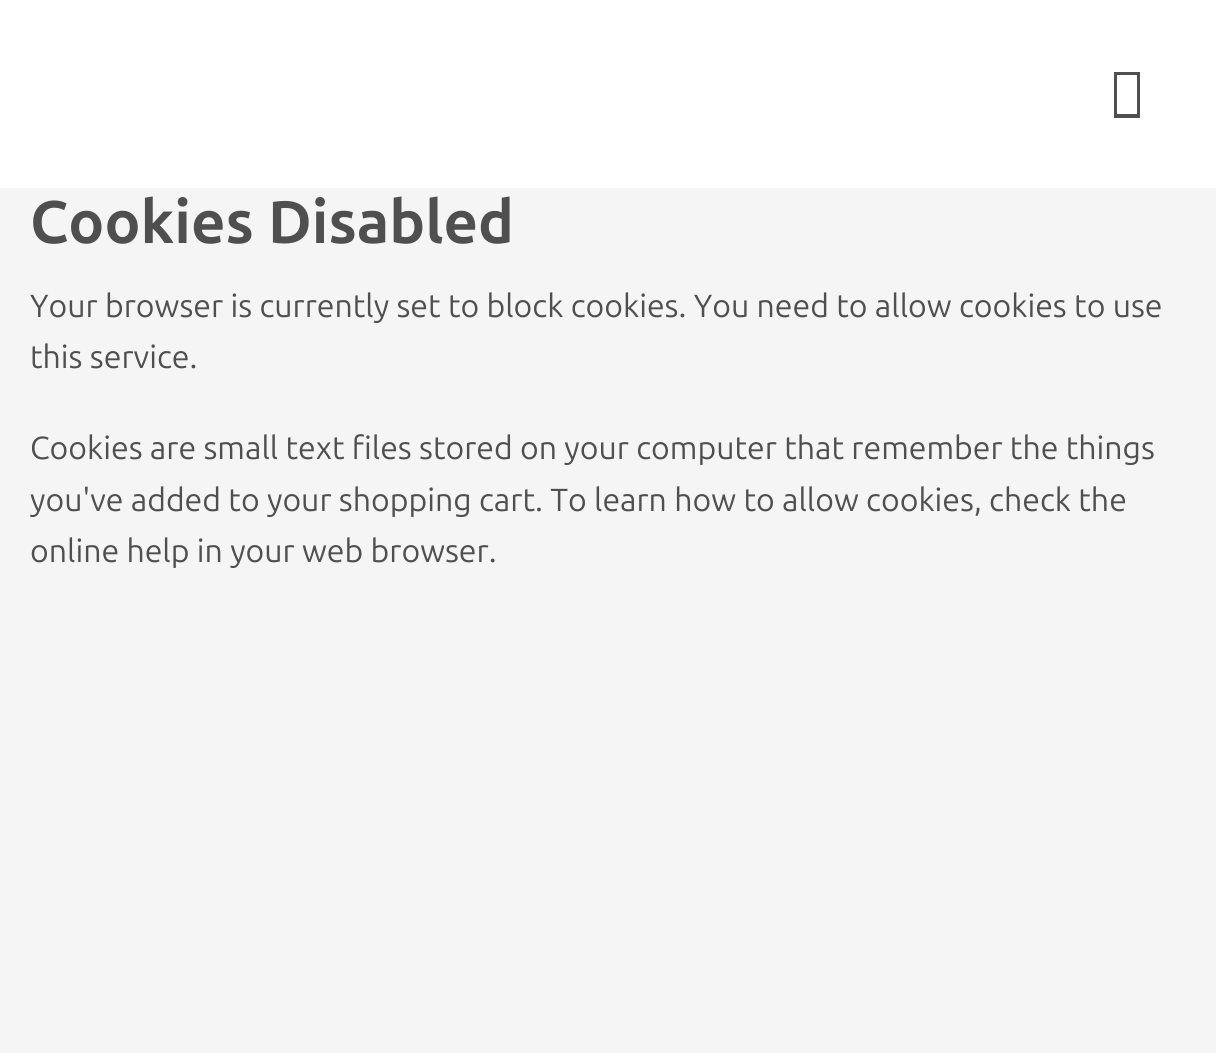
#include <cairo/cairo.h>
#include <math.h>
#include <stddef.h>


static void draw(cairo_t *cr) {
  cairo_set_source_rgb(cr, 245 / 255.0, 245 / 255.0, 245 / 255.0);
  cairo_paint(cr);
  cairo_set_source_rgb(cr, 1, 1, 1);
  cairo_rectangle(cr, 0, 0, 1216, 188);
  cairo_fill(cr);
  cairo_set_source_rgb(cr, 79 / 255.0, 79 / 255.0, 79 / 255.0);
  cairo_new_path(cr);
  cairo_move_to(cr, 1114, 118);
  cairo_line_to(cr, 1114, 72);
  cairo_line_to(cr, 1140, 72);
  cairo_line_to(cr, 1140, 118);
  cairo_close_path(cr);
  cairo_move_to(cr, 1117, 114);
  cairo_line_to(cr, 1137, 114);
  cairo_line_to(cr, 1137, 75);
  cairo_line_to(cr, 1117, 75);
  cairo_close_path(cr);
  cairo_fill(cr);
  cairo_select_font_face(cr, "Ubuntu", CAIRO_FONT_SLANT_NORMAL, CAIRO_FONT_WEIGHT_BOLD);
  cairo_set_font_size(cr, 60);
  cairo_move_to(cr, 30, 243);
  cairo_show_text(cr, "Cookies Disabled");
  cairo_select_font_face(cr, "Ubuntu", CAIRO_FONT_SLANT_NORMAL, CAIRO_FONT_WEIGHT_NORMAL);
  cairo_set_font_size(cr, 32);
  cairo_move_to(cr, 30, 317);
  cairo_show_text(cr, "Your browser is currently set to block cookies. You need to allow cookies to use");
  cairo_move_to(cr, 30, 368);
  cairo_show_text(cr, "this service.");
  cairo_move_to(cr, 30, 459);
  cairo_show_text(cr, "Cookies are small text files stored on your computer that remember the things");
  cairo_move_to(cr, 30, 511);
  cairo_show_text(cr, "you've added to your shopping cart. To learn how to allow cookies, check the");
  cairo_move_to(cr, 30, 562);
  cairo_show_text(cr, "online help in your web browser.");
}

int main(void) {
  cairo_surface_t *surface = cairo_image_surface_create(CAIRO_FORMAT_RGB24, 1216, 1053);
  cairo_t *cr = cairo_create(surface);
  cairo_font_options_t *options = cairo_font_options_create();
  cairo_font_options_set_hint_metrics(options, CAIRO_HINT_METRICS_OFF);
  cairo_font_options_set_hint_style(options, CAIRO_HINT_STYLE_NONE);
  cairo_set_font_options(cr, options);
  cairo_set_miter_limit(cr, 4);
  draw(cr);
  cairo_surface_write_to_png(surface, "out.png");
  cairo_font_options_destroy(options);
  cairo_destroy(cr);
  cairo_surface_destroy(surface);
  return 0;
}
